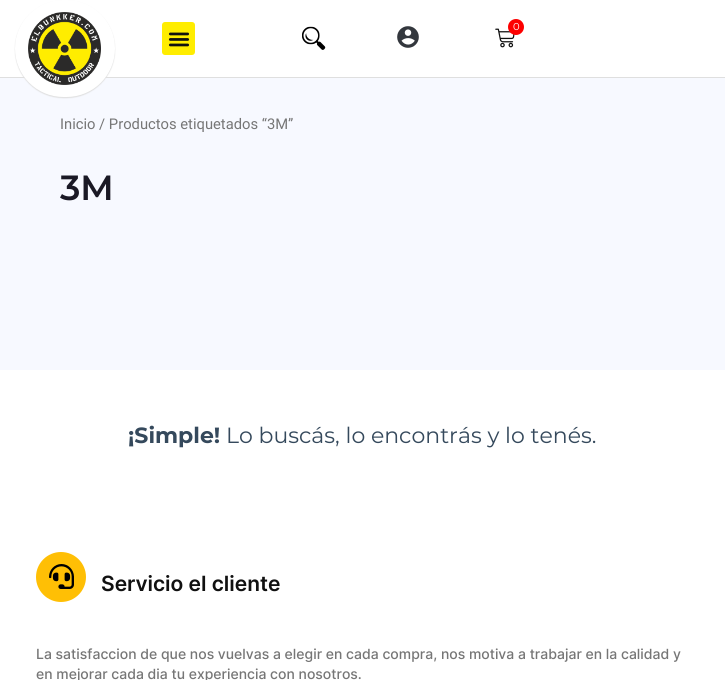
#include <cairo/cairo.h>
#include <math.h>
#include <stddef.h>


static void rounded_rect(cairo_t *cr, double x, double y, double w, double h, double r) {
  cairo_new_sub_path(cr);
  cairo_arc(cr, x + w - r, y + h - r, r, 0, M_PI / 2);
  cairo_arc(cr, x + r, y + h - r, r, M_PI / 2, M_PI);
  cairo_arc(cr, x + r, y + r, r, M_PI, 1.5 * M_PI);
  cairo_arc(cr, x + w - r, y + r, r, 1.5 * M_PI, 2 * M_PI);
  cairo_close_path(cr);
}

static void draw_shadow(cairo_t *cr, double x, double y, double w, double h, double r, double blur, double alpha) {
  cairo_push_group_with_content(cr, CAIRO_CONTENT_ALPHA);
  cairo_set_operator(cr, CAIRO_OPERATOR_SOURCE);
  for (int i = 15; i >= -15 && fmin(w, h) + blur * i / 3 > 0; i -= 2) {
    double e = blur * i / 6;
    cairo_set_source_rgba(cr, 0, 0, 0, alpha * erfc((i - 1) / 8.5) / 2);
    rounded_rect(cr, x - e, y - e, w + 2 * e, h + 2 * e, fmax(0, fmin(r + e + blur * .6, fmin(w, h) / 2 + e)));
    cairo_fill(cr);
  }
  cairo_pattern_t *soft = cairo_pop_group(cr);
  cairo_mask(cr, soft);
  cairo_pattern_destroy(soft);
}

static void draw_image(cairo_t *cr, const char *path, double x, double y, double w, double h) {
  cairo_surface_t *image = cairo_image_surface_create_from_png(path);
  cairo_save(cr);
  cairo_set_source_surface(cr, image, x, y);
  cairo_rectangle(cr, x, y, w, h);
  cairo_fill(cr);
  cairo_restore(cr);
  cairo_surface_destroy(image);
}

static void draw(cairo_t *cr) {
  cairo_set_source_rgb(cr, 247 / 255.0, 249 / 255.0, 1);
  cairo_paint(cr);
  cairo_set_source_rgb(cr, 1, 1, 1);
  cairo_rectangle(cr, 0, 0, 725, 77);
  cairo_fill(cr);
  cairo_set_source_rgb(cr, 223 / 255.0, 223 / 255.0, 223 / 255.0);
  cairo_rectangle(cr, 0, 77, 725, 1);
  cairo_fill(cr);
  cairo_set_source_rgb(cr, 223 / 255.0, 223 / 255.0, 223 / 255.0);
  draw_shadow(cr, 15, 1, 100, 97, 48.5, 0.5, 1);
  cairo_set_source_rgb(cr, 1, 1, 1);
  rounded_rect(cr, 15, 0, 100, 97, 48.5);
  cairo_fill(cr);
  draw_image(cr, "images/1.png", 28, 12, 73, 73);
  cairo_set_source_rgb(cr, 1, 237 / 255.0, 0);
  rounded_rect(cr, 162, 22, 33, 33, 3);
  cairo_fill(cr);
  draw_image(cr, "images/2.png", 168, 32, 22, 15);
  draw_image(cr, "images/3.png", 302, 26, 24, 24);
  draw_image(cr, "images/4.png", 397, 26, 22, 22);
  draw_image(cr, "images/5.png", 495, 28, 20, 20);
  cairo_set_source_rgb(cr, 253 / 255.0, 0, 0);
  cairo_arc(cr, 516, 27, 8, 0, 2 * M_PI);
  cairo_fill(cr);
  cairo_set_source_rgb(cr, 1, 1, 1);
  cairo_rectangle(cr, 0, 370, 725, 310);
  cairo_fill(cr);
  cairo_set_source_rgb(cr, 1, 191 / 255.0, 5 / 255.0);
  cairo_arc(cr, 61, 577, 25, 0, 2 * M_PI);
  cairo_fill(cr);
  draw_image(cr, "images/6.png", 49, 564, 25, 25);
  cairo_select_font_face(cr, "Montserrat", CAIRO_FONT_SLANT_NORMAL, CAIRO_FONT_WEIGHT_NORMAL);
  cairo_set_font_size(cr, 10);
  cairo_set_source_rgb(cr, 1, 1, 1);
  cairo_move_to(cr, 513, 30);
  cairo_show_text(cr, "0");
  cairo_select_font_face(cr, "Roboto", CAIRO_FONT_SLANT_NORMAL, CAIRO_FONT_WEIGHT_NORMAL);
  cairo_set_font_size(cr, 14.75);
  cairo_set_source_rgb(cr, 118 / 255.0, 118 / 255.0, 118 / 255.0);
  cairo_move_to(cr, 60, 129);
  cairo_show_text(cr, "Inicio / Productos etiquetados “3M”");
  cairo_select_font_face(cr, "Montserrat SemiBold", CAIRO_FONT_SLANT_NORMAL, CAIRO_FONT_WEIGHT_NORMAL);
  cairo_set_font_size(cr, 35);
  cairo_set_source_rgb(cr, 26 / 255.0, 25 / 255.0, 37 / 255.0);
  cairo_move_to(cr, 60, 200);
  cairo_show_text(cr, "3M");
  cairo_select_font_face(cr, "Montserrat", CAIRO_FONT_SLANT_NORMAL, CAIRO_FONT_WEIGHT_BOLD);
  cairo_set_font_size(cr, 22);
  cairo_set_source_rgb(cr, 53 / 255.0, 73 / 255.0, 92 / 255.0);
  cairo_move_to(cr, 128, 443);
  cairo_show_text(cr, "¡Simple!");
  cairo_select_font_face(cr, "Montserrat", CAIRO_FONT_SLANT_NORMAL, CAIRO_FONT_WEIGHT_NORMAL);
  cairo_move_to(cr, 226, 443);
  cairo_show_text(cr, "Lo buscás, lo encontrás y lo tenés.");
  cairo_select_font_face(cr, "Inter SemiBold", CAIRO_FONT_SLANT_NORMAL, CAIRO_FONT_WEIGHT_NORMAL);
  cairo_set_font_size(cr, 21);
  cairo_set_source_rgb(cr, 17 / 255.0, 17 / 255.0, 17 / 255.0);
  cairo_move_to(cr, 101, 591);
  cairo_show_text(cr, "Servicio el cliente");
  cairo_select_font_face(cr, "Inter Medium", CAIRO_FONT_SLANT_NORMAL, CAIRO_FONT_WEIGHT_NORMAL);
  cairo_set_font_size(cr, 14);
  cairo_set_source_rgb(cr, 118 / 255.0, 118 / 255.0, 118 / 255.0);
  cairo_move_to(cr, 36, 659);
  cairo_show_text(cr, "La satisfaccion de que nos vuelvas a elegir en cada compra, nos motiva a trabajar en la calidad y");
  cairo_move_to(cr, 36, 679);
  cairo_show_text(cr, "en mejorar cada dia tu experiencia con nosotros.");
}

int main(void) {
  cairo_surface_t *surface = cairo_image_surface_create(CAIRO_FORMAT_RGB24, 725, 680);
  cairo_t *cr = cairo_create(surface);
  cairo_font_options_t *options = cairo_font_options_create();
  cairo_font_options_set_hint_metrics(options, CAIRO_HINT_METRICS_OFF);
  cairo_font_options_set_hint_style(options, CAIRO_HINT_STYLE_NONE);
  cairo_set_font_options(cr, options);
  cairo_set_miter_limit(cr, 4);
  draw(cr);
  cairo_surface_write_to_png(surface, "out.png");
  cairo_font_options_destroy(options);
  cairo_destroy(cr);
  cairo_surface_destroy(surface);
  return 0;
}
